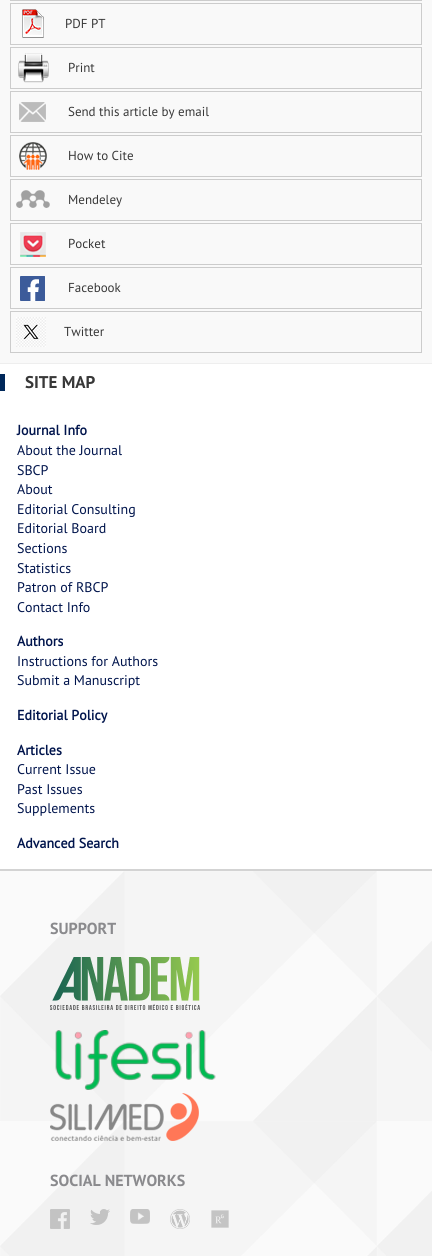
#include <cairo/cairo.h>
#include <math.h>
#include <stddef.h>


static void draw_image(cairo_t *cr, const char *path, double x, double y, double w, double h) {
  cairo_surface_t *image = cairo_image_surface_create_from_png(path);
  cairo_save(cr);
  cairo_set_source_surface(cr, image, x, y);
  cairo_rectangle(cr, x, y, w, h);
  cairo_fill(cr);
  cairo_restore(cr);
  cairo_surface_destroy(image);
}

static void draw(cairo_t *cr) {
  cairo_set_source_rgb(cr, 1, 1, 1);
  cairo_paint(cr);
  cairo_set_source_rgb(cr, 249 / 255.0, 249 / 255.0, 249 / 255.0);
  cairo_rectangle(cr, 0, 0, 432, 363);
  cairo_fill(cr);
  cairo_set_source_rgb(cr, 238 / 255.0, 238 / 255.0, 238 / 255.0);
  cairo_rectangle(cr, 0, 363, 432, 1);
  cairo_fill(cr);
  cairo_rectangle(cr, 10.5, -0.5, 411, 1);
  cairo_set_source_rgb(cr, 204 / 255.0, 204 / 255.0, 204 / 255.0);
  cairo_set_line_width(cr, 1);
  cairo_stroke(cr);
  cairo_rectangle(cr, 10.5, 3.5, 411, 41);
  cairo_stroke(cr);
  draw_image(cr, "images/1.png", 22, 9, 22, 29);
  cairo_rectangle(cr, 10.5, 47.5, 411, 41);
  cairo_stroke(cr);
  draw_image(cr, "images/2.png", 18, 53, 31, 30);
  cairo_rectangle(cr, 10.5, 91.5, 411, 41);
  cairo_stroke(cr);
  draw_image(cr, "images/3.png", 19, 102, 27, 20);
  cairo_rectangle(cr, 10.5, 135.5, 411, 41);
  cairo_stroke(cr);
  draw_image(cr, "images/4.png", 19, 142, 28, 28);
  cairo_rectangle(cr, 10.5, 179.5, 411, 41);
  cairo_stroke(cr);
  draw_image(cr, "images/5.png", 16, 190, 34, 18);
  cairo_rectangle(cr, 10.5, 223.5, 411, 41);
  cairo_stroke(cr);
  draw_image(cr, "images/6.png", 20, 232, 26, 25);
  cairo_rectangle(cr, 10.5, 267.5, 411, 41);
  cairo_stroke(cr);
  draw_image(cr, "images/7.png", 20, 276, 25, 25);
  cairo_rectangle(cr, 10.5, 311.5, 411, 41);
  cairo_stroke(cr);
  draw_image(cr, "images/8.png", 16, 317, 30, 30);
  cairo_set_source_rgb(cr, 0, 40 / 255.0, 90 / 255.0);
  cairo_rectangle(cr, 0, 374, 5, 17);
  cairo_fill(cr);
  draw_image(cr, "images/9.png", 0, 871, 432, 385);
  cairo_set_source_rgb(cr, 211 / 255.0, 211 / 255.0, 211 / 255.0);
  cairo_rectangle(cr, 0, 869, 432, 2);
  cairo_fill(cr);
  draw_image(cr, "images/10.png", 50, 957, 150, 53);
  draw_image(cr, "images/11.png", 55, 1030, 161, 60);
  draw_image(cr, "images/12.png", 50, 1093, 149, 48);
  draw_image(cr, "images/13.png", 50, 1209, 20, 20);
  draw_image(cr, "images/14.png", 90, 1209, 20, 16);
  draw_image(cr, "images/15.png", 130, 1209, 20, 15);
  draw_image(cr, "images/16.png", 170, 1209, 20, 20);
  draw_image(cr, "images/17.png", 211, 1210, 18, 18);
  cairo_select_font_face(cr, "PT Sans", CAIRO_FONT_SLANT_NORMAL, CAIRO_FONT_WEIGHT_NORMAL);
  cairo_set_font_size(cr, 13);
  cairo_set_source_rgb(cr, 56 / 255.0, 56 / 255.0, 56 / 255.0);
  cairo_move_to(cr, 65, 28);
  cairo_show_text(cr, "PDF PT");
  cairo_move_to(cr, 68, 72);
  cairo_show_text(cr, "Print");
  cairo_move_to(cr, 68, 116);
  cairo_show_text(cr, "Send this article by email");
  cairo_move_to(cr, 68, 160);
  cairo_show_text(cr, "How to Cite");
  cairo_move_to(cr, 68, 204);
  cairo_show_text(cr, "Mendeley");
  cairo_move_to(cr, 68, 248);
  cairo_show_text(cr, "Pocket");
  cairo_move_to(cr, 68, 292);
  cairo_show_text(cr, "Facebook");
  cairo_move_to(cr, 64, 336);
  cairo_show_text(cr, "Twitter");
  cairo_select_font_face(cr, "PT Sans", CAIRO_FONT_SLANT_NORMAL, CAIRO_FONT_WEIGHT_BOLD);
  cairo_set_font_size(cr, 17);
  cairo_move_to(cr, 25, 388);
  cairo_show_text(cr, "SITE MAP");
  cairo_select_font_face(cr, "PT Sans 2", CAIRO_FONT_SLANT_NORMAL, CAIRO_FONT_WEIGHT_BOLD);
  cairo_set_font_size(cr, 14);
  cairo_set_source_rgb(cr, 0, 20 / 255.0, 76 / 255.0);
  cairo_move_to(cr, 17, 435);
  cairo_show_text(cr, "Journal Info");
  cairo_select_font_face(cr, "PT Sans", CAIRO_FONT_SLANT_NORMAL, CAIRO_FONT_WEIGHT_NORMAL);
  cairo_move_to(cr, 17, 455);
  cairo_show_text(cr, "About the Journal");
  cairo_move_to(cr, 17, 475);
  cairo_show_text(cr, "SBCP");
  cairo_move_to(cr, 17, 494);
  cairo_show_text(cr, "About");
  cairo_move_to(cr, 17, 514);
  cairo_show_text(cr, "Editorial Consulting");
  cairo_move_to(cr, 17, 533);
  cairo_show_text(cr, "Editorial Board");
  cairo_move_to(cr, 17, 553);
  cairo_show_text(cr, "Sections");
  cairo_move_to(cr, 17, 573);
  cairo_show_text(cr, "Statistics");
  cairo_move_to(cr, 17, 592);
  cairo_show_text(cr, "Patron of RBCP");
  cairo_move_to(cr, 17, 612);
  cairo_show_text(cr, "Contact Info");
  cairo_select_font_face(cr, "PT Sans 2", CAIRO_FONT_SLANT_NORMAL, CAIRO_FONT_WEIGHT_BOLD);
  cairo_move_to(cr, 17, 646);
  cairo_show_text(cr, "Authors");
  cairo_select_font_face(cr, "PT Sans", CAIRO_FONT_SLANT_NORMAL, CAIRO_FONT_WEIGHT_NORMAL);
  cairo_move_to(cr, 17, 666);
  cairo_show_text(cr, "Instructions for Authors");
  cairo_move_to(cr, 17, 685);
  cairo_show_text(cr, "Submit a Manuscript");
  cairo_select_font_face(cr, "PT Sans 2", CAIRO_FONT_SLANT_NORMAL, CAIRO_FONT_WEIGHT_BOLD);
  cairo_move_to(cr, 17, 720);
  cairo_show_text(cr, "Editorial Policy");
  cairo_move_to(cr, 17, 755);
  cairo_show_text(cr, "Articles");
  cairo_select_font_face(cr, "PT Sans", CAIRO_FONT_SLANT_NORMAL, CAIRO_FONT_WEIGHT_NORMAL);
  cairo_move_to(cr, 17, 774);
  cairo_show_text(cr, "Current Issue");
  cairo_move_to(cr, 17, 794);
  cairo_show_text(cr, "Past Issues");
  cairo_move_to(cr, 17, 813);
  cairo_show_text(cr, "Supplements");
  cairo_select_font_face(cr, "PT Sans 2", CAIRO_FONT_SLANT_NORMAL, CAIRO_FONT_WEIGHT_BOLD);
  cairo_move_to(cr, 17, 848);
  cairo_show_text(cr, "Advanced Search");
  cairo_select_font_face(cr, "PT Sans", CAIRO_FONT_SLANT_NORMAL, CAIRO_FONT_WEIGHT_BOLD);
  cairo_set_font_size(cr, 16);
  cairo_set_source_rgb(cr, 138 / 255.0, 138 / 255.0, 141 / 255.0);
  cairo_move_to(cr, 50, 934);
  cairo_show_text(cr, "SUPPORT");
  cairo_move_to(cr, 50, 1186);
  cairo_show_text(cr, "SOCIAL NETWORKS");
}

int main(void) {
  cairo_surface_t *surface = cairo_image_surface_create(CAIRO_FORMAT_RGB24, 432, 1256);
  cairo_t *cr = cairo_create(surface);
  cairo_font_options_t *options = cairo_font_options_create();
  cairo_font_options_set_hint_metrics(options, CAIRO_HINT_METRICS_OFF);
  cairo_font_options_set_hint_style(options, CAIRO_HINT_STYLE_NONE);
  cairo_set_font_options(cr, options);
  cairo_set_miter_limit(cr, 4);
  draw(cr);
  cairo_surface_write_to_png(surface, "out.png");
  cairo_font_options_destroy(options);
  cairo_destroy(cr);
  cairo_surface_destroy(surface);
  return 0;
}
